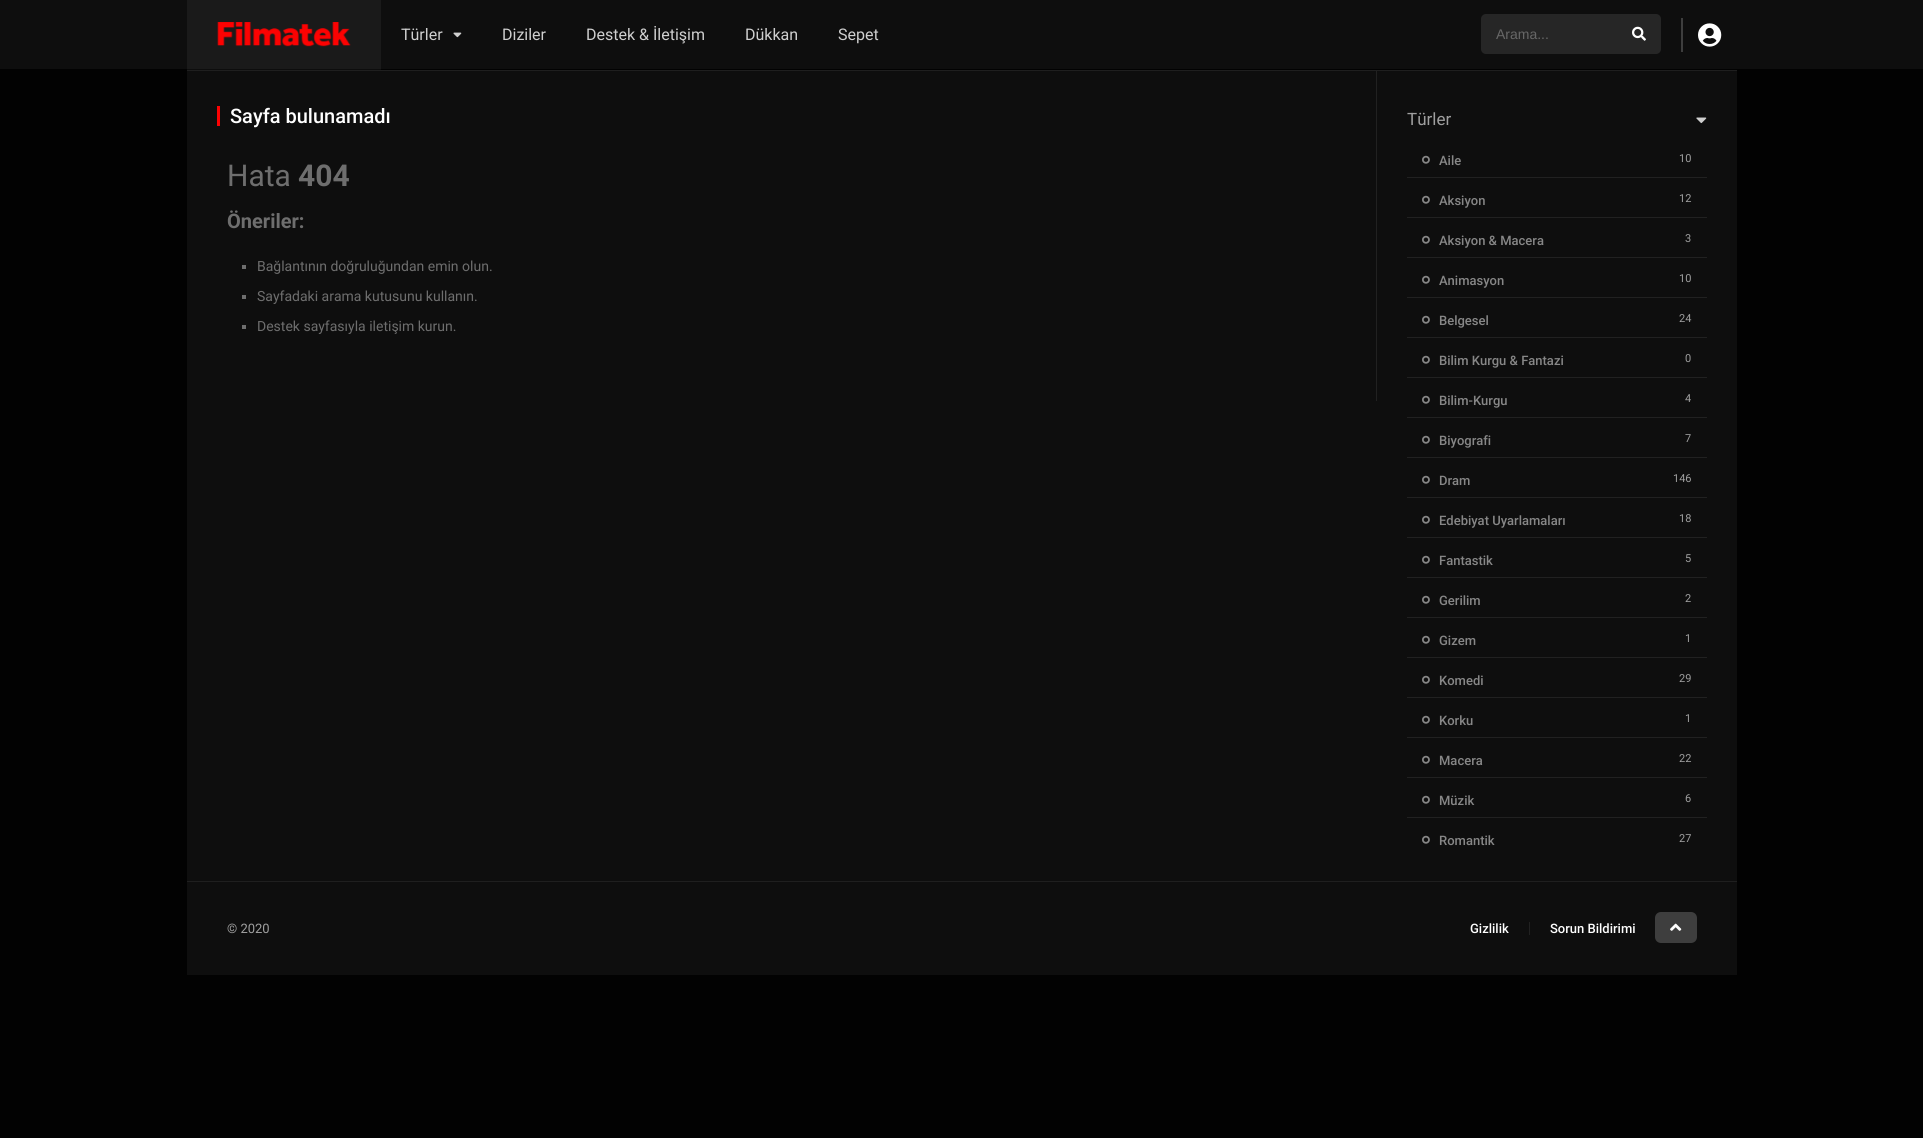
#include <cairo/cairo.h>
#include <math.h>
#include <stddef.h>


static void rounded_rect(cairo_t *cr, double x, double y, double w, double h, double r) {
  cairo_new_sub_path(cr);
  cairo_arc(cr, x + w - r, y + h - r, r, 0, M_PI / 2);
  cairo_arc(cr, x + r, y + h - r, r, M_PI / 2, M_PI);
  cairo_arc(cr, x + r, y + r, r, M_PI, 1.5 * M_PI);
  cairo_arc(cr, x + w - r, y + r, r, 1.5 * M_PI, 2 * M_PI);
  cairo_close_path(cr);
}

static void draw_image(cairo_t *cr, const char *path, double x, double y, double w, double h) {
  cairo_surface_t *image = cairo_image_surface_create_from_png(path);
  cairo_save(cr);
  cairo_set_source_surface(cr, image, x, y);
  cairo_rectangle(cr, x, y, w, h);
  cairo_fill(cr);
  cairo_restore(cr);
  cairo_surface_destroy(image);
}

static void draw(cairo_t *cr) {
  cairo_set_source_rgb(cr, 2 / 255.0, 2 / 255.0, 2 / 255.0);
  cairo_paint(cr);
  cairo_set_source_rgb(cr, 14 / 255.0, 14 / 255.0, 14 / 255.0);
  cairo_rectangle(cr, 0, 0, 1923, 69);
  cairo_fill(cr);
  cairo_set_source_rgb(cr, 26 / 255.0, 26 / 255.0, 26 / 255.0);
  cairo_rectangle(cr, 187, 0, 194, 69);
  cairo_fill(cr);
  cairo_set_source_rgb(cr, 13 / 255.0, 13 / 255.0, 13 / 255.0);
  cairo_rectangle(cr, 187, 69, 194, 1);
  cairo_fill(cr);
  draw_image(cr, "images/1.png", 217, 22, 134, 25);
  draw_image(cr, "images/2.png", 453, 32, 9, 6);
  cairo_set_source_rgb(cr, 38 / 255.0, 38 / 255.0, 38 / 255.0);
  rounded_rect(cr, 1481, 14, 180, 40, 5);
  cairo_fill(cr);
  draw_image(cr, "images/3.png", 1632, 26, 14, 15);
  cairo_set_source_rgb(cr, 62 / 255.0, 62 / 255.0, 62 / 255.0);
  cairo_rectangle(cr, 1681, 18, 2, 34);
  cairo_fill(cr);
  draw_image(cr, "images/4.png", 1698, 23, 24, 24);
  cairo_set_source_rgb(cr, 14 / 255.0, 14 / 255.0, 14 / 255.0);
  cairo_rectangle(cr, 187, 71, 1550, 810);
  cairo_fill(cr);
  cairo_set_source_rgb(cr, 31 / 255.0, 31 / 255.0, 31 / 255.0);
  cairo_rectangle(cr, 187, 70, 1550, 1);
  cairo_fill(cr);
  cairo_rectangle(cr, 187, 881, 1550, 1);
  cairo_fill(cr);
  cairo_set_source_rgb(cr, 33 / 255.0, 33 / 255.0, 33 / 255.0);
  cairo_rectangle(cr, 1376, 71, 1, 330);
  cairo_fill(cr);
  cairo_set_source_rgb(cr, 252 / 255.0, 2 / 255.0, 3 / 255.0);
  cairo_rectangle(cr, 217, 106, 3, 20);
  cairo_fill(cr);
  cairo_set_source_rgb(cr, 110 / 255.0, 110 / 255.0, 110 / 255.0);
  cairo_rectangle(cr, 242, 265, 4, 4);
  cairo_fill(cr);
  cairo_rectangle(cr, 242, 295, 4, 4);
  cairo_fill(cr);
  cairo_rectangle(cr, 242, 325, 4, 4);
  cairo_fill(cr);
  draw_image(cr, "images/5.png", 1696, 117, 11, 7);
  cairo_set_source_rgb(cr, 33 / 255.0, 33 / 255.0, 33 / 255.0);
  cairo_rectangle(cr, 1407, 177, 300, 1);
  cairo_fill(cr);
  draw_image(cr, "images/6.png", 1422, 155, 8, 9);
  cairo_rectangle(cr, 1407, 217, 300, 1);
  cairo_fill(cr);
  draw_image(cr, "images/6.png", 1422, 195, 8, 9);
  cairo_rectangle(cr, 1407, 257, 300, 1);
  cairo_fill(cr);
  draw_image(cr, "images/6.png", 1422, 235, 8, 9);
  cairo_rectangle(cr, 1407, 297, 300, 1);
  cairo_fill(cr);
  draw_image(cr, "images/6.png", 1422, 275, 8, 9);
  cairo_rectangle(cr, 1407, 337, 300, 1);
  cairo_fill(cr);
  draw_image(cr, "images/6.png", 1422, 315, 8, 9);
  cairo_rectangle(cr, 1407, 377, 300, 1);
  cairo_fill(cr);
  draw_image(cr, "images/6.png", 1422, 355, 8, 9);
  cairo_rectangle(cr, 1407, 417, 300, 1);
  cairo_fill(cr);
  draw_image(cr, "images/6.png", 1422, 395, 8, 9);
  cairo_rectangle(cr, 1407, 457, 300, 1);
  cairo_fill(cr);
  draw_image(cr, "images/6.png", 1422, 435, 8, 9);
  cairo_rectangle(cr, 1407, 497, 300, 1);
  cairo_fill(cr);
  draw_image(cr, "images/6.png", 1422, 475, 8, 9);
  cairo_rectangle(cr, 1407, 537, 300, 1);
  cairo_fill(cr);
  draw_image(cr, "images/6.png", 1422, 515, 8, 9);
  cairo_rectangle(cr, 1407, 577, 300, 1);
  cairo_fill(cr);
  draw_image(cr, "images/6.png", 1422, 555, 8, 9);
  cairo_rectangle(cr, 1407, 617, 300, 1);
  cairo_fill(cr);
  draw_image(cr, "images/6.png", 1422, 595, 8, 9);
  cairo_rectangle(cr, 1407, 657, 300, 1);
  cairo_fill(cr);
  draw_image(cr, "images/6.png", 1422, 635, 8, 9);
  cairo_rectangle(cr, 1407, 697, 300, 1);
  cairo_fill(cr);
  draw_image(cr, "images/6.png", 1422, 675, 8, 9);
  cairo_rectangle(cr, 1407, 737, 300, 1);
  cairo_fill(cr);
  draw_image(cr, "images/6.png", 1422, 715, 8, 9);
  cairo_rectangle(cr, 1407, 777, 300, 1);
  cairo_fill(cr);
  draw_image(cr, "images/6.png", 1422, 755, 8, 9);
  cairo_rectangle(cr, 1407, 817, 300, 1);
  cairo_fill(cr);
  draw_image(cr, "images/6.png", 1422, 795, 8, 9);
  draw_image(cr, "images/6.png", 1422, 835, 8, 9);
  cairo_set_source_rgb(cr, 14 / 255.0, 14 / 255.0, 14 / 255.0);
  cairo_rectangle(cr, 187, 882, 1550, 93);
  cairo_fill(cr);
  cairo_set_source_rgb(cr, 33 / 255.0, 33 / 255.0, 33 / 255.0);
  cairo_rectangle(cr, 1529, 922, 1, 13);
  cairo_fill(cr);
  cairo_set_source_rgb(cr, 62 / 255.0, 62 / 255.0, 62 / 255.0);
  rounded_rect(cr, 1655, 912, 42, 31, 6);
  cairo_fill(cr);
  draw_image(cr, "images/7.png", 1670, 923, 12, 8);
  cairo_select_font_face(cr, "Roboto", CAIRO_FONT_SLANT_NORMAL, CAIRO_FONT_WEIGHT_NORMAL);
  cairo_set_font_size(cr, 16);
  cairo_set_source_rgb(cr, 207 / 255.0, 207 / 255.0, 207 / 255.0);
  cairo_move_to(cr, 401, 40);
  cairo_show_text(cr, "Türler");
  cairo_move_to(cr, 502, 40);
  cairo_show_text(cr, "Diziler");
  cairo_move_to(cr, 586, 40);
  cairo_show_text(cr, "Destek & İletişim");
  cairo_move_to(cr, 745, 40);
  cairo_show_text(cr, "Dükkan");
  cairo_move_to(cr, 838, 40);
  cairo_show_text(cr, "Sepet");
  cairo_select_font_face(cr, "Liberation Sans", CAIRO_FONT_SLANT_NORMAL, CAIRO_FONT_WEIGHT_NORMAL);
  cairo_set_font_size(cr, 14);
  cairo_set_source_rgb(cr, 103 / 255.0, 103 / 255.0, 103 / 255.0);
  cairo_move_to(cr, 1496, 39);
  cairo_show_text(cr, "Arama...");
  cairo_select_font_face(cr, "Roboto Medium", CAIRO_FONT_SLANT_NORMAL, CAIRO_FONT_WEIGHT_NORMAL);
  cairo_set_font_size(cr, 20);
  cairo_set_source_rgb(cr, 1, 1, 1);
  cairo_move_to(cr, 230, 123);
  cairo_show_text(cr, "Sayfa bulunamadı");
  cairo_select_font_face(cr, "Roboto", CAIRO_FONT_SLANT_NORMAL, CAIRO_FONT_WEIGHT_NORMAL);
  cairo_set_font_size(cr, 30);
  cairo_set_source_rgb(cr, 110 / 255.0, 110 / 255.0, 110 / 255.0);
  cairo_move_to(cr, 227, 186);
  cairo_show_text(cr, "Hata");
  cairo_select_font_face(cr, "Roboto", CAIRO_FONT_SLANT_NORMAL, CAIRO_FONT_WEIGHT_BOLD);
  cairo_move_to(cr, 298, 186);
  cairo_show_text(cr, "404");
  cairo_set_font_size(cr, 20);
  cairo_move_to(cr, 227, 228);
  cairo_show_text(cr, "Öneriler:");
  cairo_select_font_face(cr, "Roboto", CAIRO_FONT_SLANT_NORMAL, CAIRO_FONT_WEIGHT_NORMAL);
  cairo_set_font_size(cr, 14);
  cairo_move_to(cr, 257, 271);
  cairo_show_text(cr, "Bağlantının doğruluğundan emin olun.");
  cairo_move_to(cr, 257, 301);
  cairo_show_text(cr, "Sayfadaki arama kutusunu kullanın.");
  cairo_move_to(cr, 257, 331);
  cairo_show_text(cr, "Destek sayfasıyla iletişim kurun.");
  cairo_set_font_size(cr, 17);
  cairo_set_source_rgb(cr, 159 / 255.0, 159 / 255.0, 159 / 255.0);
  cairo_move_to(cr, 1407, 125);
  cairo_show_text(cr, "Türler");
  cairo_select_font_face(cr, "Roboto Medium", CAIRO_FONT_SLANT_NORMAL, CAIRO_FONT_WEIGHT_NORMAL);
  cairo_set_font_size(cr, 13);
  cairo_set_source_rgb(cr, 135 / 255.0, 135 / 255.0, 135 / 255.0);
  cairo_move_to(cr, 1439, 165);
  cairo_show_text(cr, "Aile");
  cairo_select_font_face(cr, "Roboto", CAIRO_FONT_SLANT_NORMAL, CAIRO_FONT_WEIGHT_NORMAL);
  cairo_set_font_size(cr, 11);
  cairo_set_source_rgb(cr, 159 / 255.0, 159 / 255.0, 159 / 255.0);
  cairo_move_to(cr, 1679, 162);
  cairo_show_text(cr, "10");
  cairo_select_font_face(cr, "Roboto Medium", CAIRO_FONT_SLANT_NORMAL, CAIRO_FONT_WEIGHT_NORMAL);
  cairo_set_font_size(cr, 13);
  cairo_set_source_rgb(cr, 135 / 255.0, 135 / 255.0, 135 / 255.0);
  cairo_move_to(cr, 1439, 205);
  cairo_show_text(cr, "Aksiyon");
  cairo_select_font_face(cr, "Roboto", CAIRO_FONT_SLANT_NORMAL, CAIRO_FONT_WEIGHT_NORMAL);
  cairo_set_font_size(cr, 11);
  cairo_set_source_rgb(cr, 159 / 255.0, 159 / 255.0, 159 / 255.0);
  cairo_move_to(cr, 1679, 202);
  cairo_show_text(cr, "12");
  cairo_select_font_face(cr, "Roboto Medium", CAIRO_FONT_SLANT_NORMAL, CAIRO_FONT_WEIGHT_NORMAL);
  cairo_set_font_size(cr, 13);
  cairo_set_source_rgb(cr, 135 / 255.0, 135 / 255.0, 135 / 255.0);
  cairo_move_to(cr, 1439, 245);
  cairo_show_text(cr, "Aksiyon & Macera");
  cairo_select_font_face(cr, "Roboto", CAIRO_FONT_SLANT_NORMAL, CAIRO_FONT_WEIGHT_NORMAL);
  cairo_set_font_size(cr, 11);
  cairo_set_source_rgb(cr, 159 / 255.0, 159 / 255.0, 159 / 255.0);
  cairo_move_to(cr, 1685, 242);
  cairo_show_text(cr, "3");
  cairo_select_font_face(cr, "Roboto Medium", CAIRO_FONT_SLANT_NORMAL, CAIRO_FONT_WEIGHT_NORMAL);
  cairo_set_font_size(cr, 13);
  cairo_set_source_rgb(cr, 135 / 255.0, 135 / 255.0, 135 / 255.0);
  cairo_move_to(cr, 1439, 285);
  cairo_show_text(cr, "Animasyon");
  cairo_select_font_face(cr, "Roboto", CAIRO_FONT_SLANT_NORMAL, CAIRO_FONT_WEIGHT_NORMAL);
  cairo_set_font_size(cr, 11);
  cairo_set_source_rgb(cr, 159 / 255.0, 159 / 255.0, 159 / 255.0);
  cairo_move_to(cr, 1679, 282);
  cairo_show_text(cr, "10");
  cairo_select_font_face(cr, "Roboto Medium", CAIRO_FONT_SLANT_NORMAL, CAIRO_FONT_WEIGHT_NORMAL);
  cairo_set_font_size(cr, 13);
  cairo_set_source_rgb(cr, 135 / 255.0, 135 / 255.0, 135 / 255.0);
  cairo_move_to(cr, 1439, 325);
  cairo_show_text(cr, "Belgesel");
  cairo_select_font_face(cr, "Roboto", CAIRO_FONT_SLANT_NORMAL, CAIRO_FONT_WEIGHT_NORMAL);
  cairo_set_font_size(cr, 11);
  cairo_set_source_rgb(cr, 159 / 255.0, 159 / 255.0, 159 / 255.0);
  cairo_move_to(cr, 1679, 322);
  cairo_show_text(cr, "24");
  cairo_select_font_face(cr, "Roboto Medium", CAIRO_FONT_SLANT_NORMAL, CAIRO_FONT_WEIGHT_NORMAL);
  cairo_set_font_size(cr, 13);
  cairo_set_source_rgb(cr, 135 / 255.0, 135 / 255.0, 135 / 255.0);
  cairo_move_to(cr, 1439, 365);
  cairo_show_text(cr, "Bilim Kurgu & Fantazi");
  cairo_select_font_face(cr, "Roboto", CAIRO_FONT_SLANT_NORMAL, CAIRO_FONT_WEIGHT_NORMAL);
  cairo_set_font_size(cr, 11);
  cairo_set_source_rgb(cr, 159 / 255.0, 159 / 255.0, 159 / 255.0);
  cairo_move_to(cr, 1685, 362);
  cairo_show_text(cr, "0");
  cairo_select_font_face(cr, "Roboto Medium", CAIRO_FONT_SLANT_NORMAL, CAIRO_FONT_WEIGHT_NORMAL);
  cairo_set_font_size(cr, 13);
  cairo_set_source_rgb(cr, 135 / 255.0, 135 / 255.0, 135 / 255.0);
  cairo_move_to(cr, 1439, 405);
  cairo_show_text(cr, "Bilim-Kurgu");
  cairo_select_font_face(cr, "Roboto", CAIRO_FONT_SLANT_NORMAL, CAIRO_FONT_WEIGHT_NORMAL);
  cairo_set_font_size(cr, 11);
  cairo_set_source_rgb(cr, 159 / 255.0, 159 / 255.0, 159 / 255.0);
  cairo_move_to(cr, 1685, 402);
  cairo_show_text(cr, "4");
  cairo_select_font_face(cr, "Roboto Medium", CAIRO_FONT_SLANT_NORMAL, CAIRO_FONT_WEIGHT_NORMAL);
  cairo_set_font_size(cr, 13);
  cairo_set_source_rgb(cr, 135 / 255.0, 135 / 255.0, 135 / 255.0);
  cairo_move_to(cr, 1439, 445);
  cairo_show_text(cr, "Biyografi");
  cairo_select_font_face(cr, "Roboto", CAIRO_FONT_SLANT_NORMAL, CAIRO_FONT_WEIGHT_NORMAL);
  cairo_set_font_size(cr, 11);
  cairo_set_source_rgb(cr, 159 / 255.0, 159 / 255.0, 159 / 255.0);
  cairo_move_to(cr, 1685, 442);
  cairo_show_text(cr, "7");
  cairo_select_font_face(cr, "Roboto Medium", CAIRO_FONT_SLANT_NORMAL, CAIRO_FONT_WEIGHT_NORMAL);
  cairo_set_font_size(cr, 13);
  cairo_set_source_rgb(cr, 135 / 255.0, 135 / 255.0, 135 / 255.0);
  cairo_move_to(cr, 1439, 485);
  cairo_show_text(cr, "Dram");
  cairo_select_font_face(cr, "Roboto", CAIRO_FONT_SLANT_NORMAL, CAIRO_FONT_WEIGHT_NORMAL);
  cairo_set_font_size(cr, 11);
  cairo_set_source_rgb(cr, 159 / 255.0, 159 / 255.0, 159 / 255.0);
  cairo_move_to(cr, 1673, 482);
  cairo_show_text(cr, "146");
  cairo_select_font_face(cr, "Roboto Medium", CAIRO_FONT_SLANT_NORMAL, CAIRO_FONT_WEIGHT_NORMAL);
  cairo_set_font_size(cr, 13);
  cairo_set_source_rgb(cr, 135 / 255.0, 135 / 255.0, 135 / 255.0);
  cairo_move_to(cr, 1439, 525);
  cairo_show_text(cr, "Edebiyat Uyarlamaları");
  cairo_select_font_face(cr, "Roboto", CAIRO_FONT_SLANT_NORMAL, CAIRO_FONT_WEIGHT_NORMAL);
  cairo_set_font_size(cr, 11);
  cairo_set_source_rgb(cr, 159 / 255.0, 159 / 255.0, 159 / 255.0);
  cairo_move_to(cr, 1679, 522);
  cairo_show_text(cr, "18");
  cairo_select_font_face(cr, "Roboto Medium", CAIRO_FONT_SLANT_NORMAL, CAIRO_FONT_WEIGHT_NORMAL);
  cairo_set_font_size(cr, 13);
  cairo_set_source_rgb(cr, 135 / 255.0, 135 / 255.0, 135 / 255.0);
  cairo_move_to(cr, 1439, 565);
  cairo_show_text(cr, "Fantastik");
  cairo_select_font_face(cr, "Roboto", CAIRO_FONT_SLANT_NORMAL, CAIRO_FONT_WEIGHT_NORMAL);
  cairo_set_font_size(cr, 11);
  cairo_set_source_rgb(cr, 159 / 255.0, 159 / 255.0, 159 / 255.0);
  cairo_move_to(cr, 1685, 562);
  cairo_show_text(cr, "5");
  cairo_select_font_face(cr, "Roboto Medium", CAIRO_FONT_SLANT_NORMAL, CAIRO_FONT_WEIGHT_NORMAL);
  cairo_set_font_size(cr, 13);
  cairo_set_source_rgb(cr, 135 / 255.0, 135 / 255.0, 135 / 255.0);
  cairo_move_to(cr, 1439, 605);
  cairo_show_text(cr, "Gerilim");
  cairo_select_font_face(cr, "Roboto", CAIRO_FONT_SLANT_NORMAL, CAIRO_FONT_WEIGHT_NORMAL);
  cairo_set_font_size(cr, 11);
  cairo_set_source_rgb(cr, 159 / 255.0, 159 / 255.0, 159 / 255.0);
  cairo_move_to(cr, 1685, 602);
  cairo_show_text(cr, "2");
  cairo_select_font_face(cr, "Roboto Medium", CAIRO_FONT_SLANT_NORMAL, CAIRO_FONT_WEIGHT_NORMAL);
  cairo_set_font_size(cr, 13);
  cairo_set_source_rgb(cr, 135 / 255.0, 135 / 255.0, 135 / 255.0);
  cairo_move_to(cr, 1439, 645);
  cairo_show_text(cr, "Gizem");
  cairo_select_font_face(cr, "Roboto", CAIRO_FONT_SLANT_NORMAL, CAIRO_FONT_WEIGHT_NORMAL);
  cairo_set_font_size(cr, 11);
  cairo_set_source_rgb(cr, 159 / 255.0, 159 / 255.0, 159 / 255.0);
  cairo_move_to(cr, 1685, 642);
  cairo_show_text(cr, "1");
  cairo_select_font_face(cr, "Roboto Medium", CAIRO_FONT_SLANT_NORMAL, CAIRO_FONT_WEIGHT_NORMAL);
  cairo_set_font_size(cr, 13);
  cairo_set_source_rgb(cr, 135 / 255.0, 135 / 255.0, 135 / 255.0);
  cairo_move_to(cr, 1439, 685);
  cairo_show_text(cr, "Komedi");
  cairo_select_font_face(cr, "Roboto", CAIRO_FONT_SLANT_NORMAL, CAIRO_FONT_WEIGHT_NORMAL);
  cairo_set_font_size(cr, 11);
  cairo_set_source_rgb(cr, 159 / 255.0, 159 / 255.0, 159 / 255.0);
  cairo_move_to(cr, 1679, 682);
  cairo_show_text(cr, "29");
  cairo_select_font_face(cr, "Roboto Medium", CAIRO_FONT_SLANT_NORMAL, CAIRO_FONT_WEIGHT_NORMAL);
  cairo_set_font_size(cr, 13);
  cairo_set_source_rgb(cr, 135 / 255.0, 135 / 255.0, 135 / 255.0);
  cairo_move_to(cr, 1439, 725);
  cairo_show_text(cr, "Korku");
  cairo_select_font_face(cr, "Roboto", CAIRO_FONT_SLANT_NORMAL, CAIRO_FONT_WEIGHT_NORMAL);
  cairo_set_font_size(cr, 11);
  cairo_set_source_rgb(cr, 159 / 255.0, 159 / 255.0, 159 / 255.0);
  cairo_move_to(cr, 1685, 722);
  cairo_show_text(cr, "1");
  cairo_select_font_face(cr, "Roboto Medium", CAIRO_FONT_SLANT_NORMAL, CAIRO_FONT_WEIGHT_NORMAL);
  cairo_set_font_size(cr, 13);
  cairo_set_source_rgb(cr, 135 / 255.0, 135 / 255.0, 135 / 255.0);
  cairo_move_to(cr, 1439, 765);
  cairo_show_text(cr, "Macera");
  cairo_select_font_face(cr, "Roboto", CAIRO_FONT_SLANT_NORMAL, CAIRO_FONT_WEIGHT_NORMAL);
  cairo_set_font_size(cr, 11);
  cairo_set_source_rgb(cr, 159 / 255.0, 159 / 255.0, 159 / 255.0);
  cairo_move_to(cr, 1679, 762);
  cairo_show_text(cr, "22");
  cairo_select_font_face(cr, "Roboto Medium", CAIRO_FONT_SLANT_NORMAL, CAIRO_FONT_WEIGHT_NORMAL);
  cairo_set_font_size(cr, 13);
  cairo_set_source_rgb(cr, 135 / 255.0, 135 / 255.0, 135 / 255.0);
  cairo_move_to(cr, 1439, 805);
  cairo_show_text(cr, "Müzik");
  cairo_select_font_face(cr, "Roboto", CAIRO_FONT_SLANT_NORMAL, CAIRO_FONT_WEIGHT_NORMAL);
  cairo_set_font_size(cr, 11);
  cairo_set_source_rgb(cr, 159 / 255.0, 159 / 255.0, 159 / 255.0);
  cairo_move_to(cr, 1685, 802);
  cairo_show_text(cr, "6");
  cairo_select_font_face(cr, "Roboto Medium", CAIRO_FONT_SLANT_NORMAL, CAIRO_FONT_WEIGHT_NORMAL);
  cairo_set_font_size(cr, 13);
  cairo_set_source_rgb(cr, 135 / 255.0, 135 / 255.0, 135 / 255.0);
  cairo_move_to(cr, 1439, 845);
  cairo_show_text(cr, "Romantik");
  cairo_select_font_face(cr, "Roboto", CAIRO_FONT_SLANT_NORMAL, CAIRO_FONT_WEIGHT_NORMAL);
  cairo_set_font_size(cr, 11);
  cairo_set_source_rgb(cr, 159 / 255.0, 159 / 255.0, 159 / 255.0);
  cairo_move_to(cr, 1679, 842);
  cairo_show_text(cr, "27");
  cairo_set_font_size(cr, 13);
  cairo_move_to(cr, 227, 933);
  cairo_show_text(cr, "© 2020");
  cairo_select_font_face(cr, "Roboto Medium", CAIRO_FONT_SLANT_NORMAL, CAIRO_FONT_WEIGHT_NORMAL);
  cairo_set_source_rgb(cr, 1, 1, 1);
  cairo_move_to(cr, 1470, 933);
  cairo_show_text(cr, "Gizlilik");
  cairo_move_to(cr, 1550, 933);
  cairo_show_text(cr, "Sorun Bildirimi");
}

int main(void) {
  cairo_surface_t *surface = cairo_image_surface_create(CAIRO_FORMAT_RGB24, 1923, 1138);
  cairo_t *cr = cairo_create(surface);
  cairo_font_options_t *options = cairo_font_options_create();
  cairo_font_options_set_hint_metrics(options, CAIRO_HINT_METRICS_OFF);
  cairo_font_options_set_hint_style(options, CAIRO_HINT_STYLE_NONE);
  cairo_set_font_options(cr, options);
  cairo_set_miter_limit(cr, 4);
  draw(cr);
  cairo_surface_write_to_png(surface, "out.png");
  cairo_font_options_destroy(options);
  cairo_destroy(cr);
  cairo_surface_destroy(surface);
  return 0;
}
